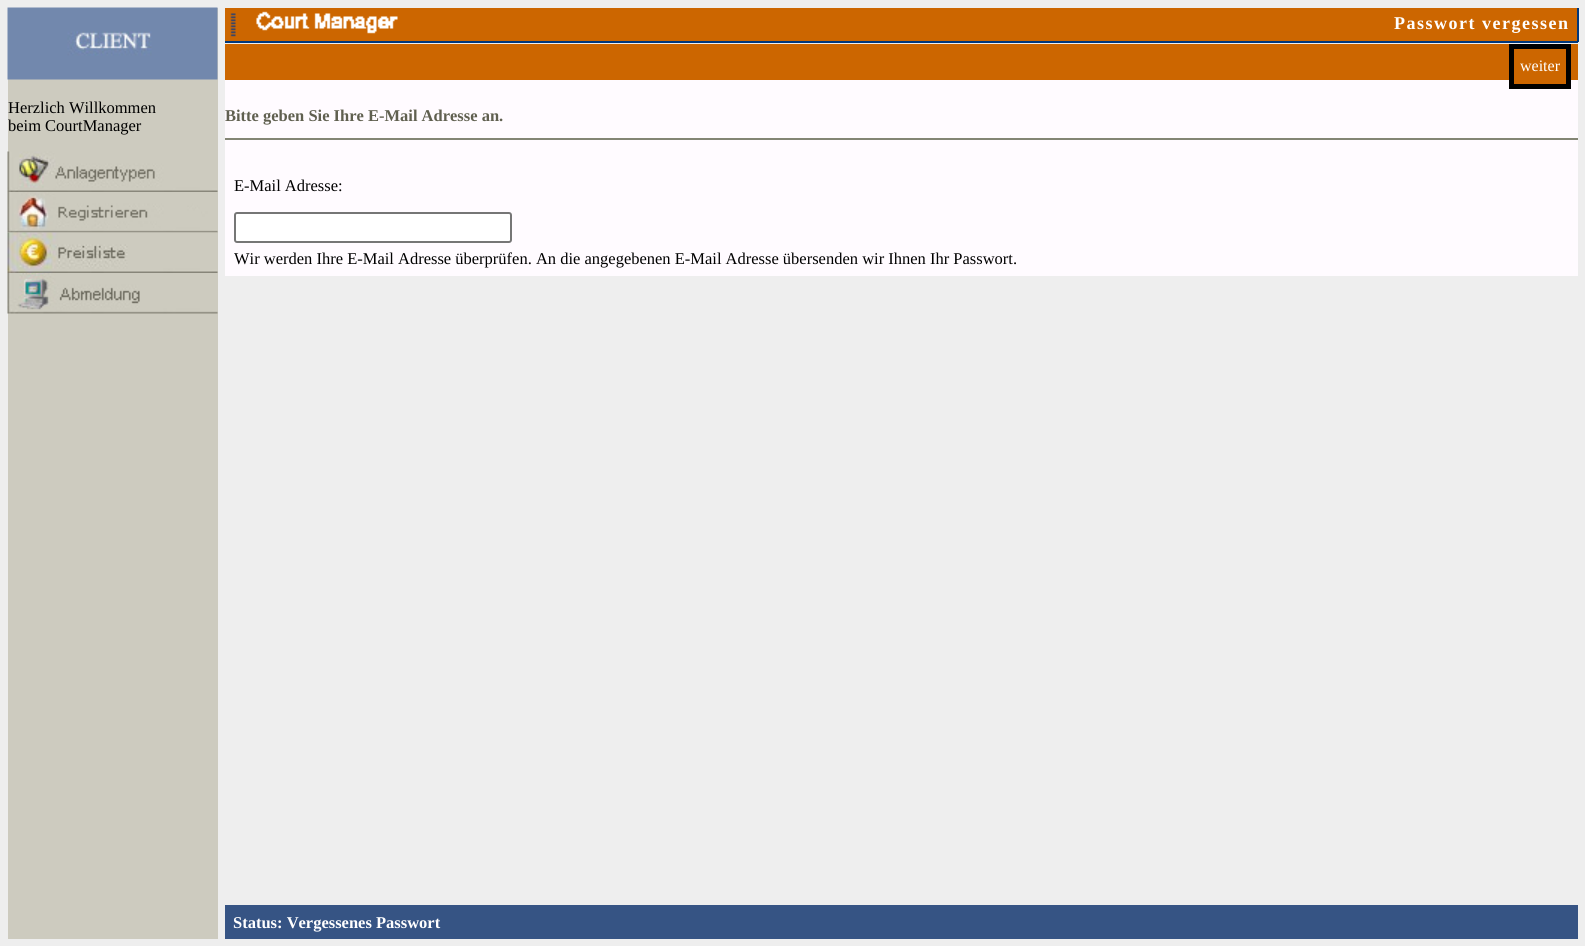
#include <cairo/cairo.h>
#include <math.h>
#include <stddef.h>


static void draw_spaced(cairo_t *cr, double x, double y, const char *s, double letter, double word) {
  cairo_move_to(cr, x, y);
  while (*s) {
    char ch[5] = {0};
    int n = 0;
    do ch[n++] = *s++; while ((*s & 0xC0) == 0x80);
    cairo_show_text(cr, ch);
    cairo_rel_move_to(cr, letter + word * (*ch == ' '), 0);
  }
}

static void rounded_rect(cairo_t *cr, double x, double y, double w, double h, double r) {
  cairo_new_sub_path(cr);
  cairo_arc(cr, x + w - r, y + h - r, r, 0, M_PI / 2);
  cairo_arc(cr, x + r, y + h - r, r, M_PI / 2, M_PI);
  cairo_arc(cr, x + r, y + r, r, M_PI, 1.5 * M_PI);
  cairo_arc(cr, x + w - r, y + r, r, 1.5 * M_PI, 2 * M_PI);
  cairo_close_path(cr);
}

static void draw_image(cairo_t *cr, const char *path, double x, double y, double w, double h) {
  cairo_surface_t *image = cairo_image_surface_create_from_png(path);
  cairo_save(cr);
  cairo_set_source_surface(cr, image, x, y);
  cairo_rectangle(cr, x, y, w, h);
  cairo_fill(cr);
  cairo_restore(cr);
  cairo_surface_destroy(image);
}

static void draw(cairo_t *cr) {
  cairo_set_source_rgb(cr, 238 / 255.0, 238 / 255.0, 238 / 255.0);
  cairo_paint(cr);
  cairo_set_source_rgb(cr, 205 / 255.0, 203 / 255.0, 191 / 255.0);
  cairo_rectangle(cr, 8, 8, 210, 931);
  cairo_fill(cr);
  draw_image(cr, "images/1.png", 7, 7, 211, 73);
  draw_image(cr, "images/2.png", 7, 151, 211, 41);
  draw_image(cr, "images/3.png", 7, 192, 211, 41);
  draw_image(cr, "images/4.png", 7, 232, 211, 41);
  draw_image(cr, "images/5.png", 7, 273, 211, 41);
  cairo_set_source_rgb(cr, 204 / 255.0, 102 / 255.0, 0);
  cairo_rectangle(cr, 225, 8, 1352, 33);
  cairo_fill(cr);
  cairo_set_source_rgb(cr, 0, 55 / 255.0, 122 / 255.0);
  cairo_rectangle(cr, 1577, 8, 2, 34);
  cairo_fill(cr);
  cairo_rectangle(cr, 225, 41, 1353, 2);
  cairo_fill(cr);
  draw_image(cr, "images/6.png", 230, 13, 6, 24);
  draw_image(cr, "images/7.png", 256, 11, 142, 23);
  cairo_set_source_rgb(cr, 204 / 255.0, 102 / 255.0, 0);
  cairo_rectangle(cr, 225, 44, 1353, 36);
  cairo_fill(cr);
  cairo_set_source_rgb(cr, 1, 251 / 255.0, 1);
  cairo_rectangle(cr, 225, 80, 1353, 196);
  cairo_fill(cr);
  cairo_set_source_rgb(cr, 204 / 255.0, 102 / 255.0, 0);
  cairo_rectangle(cr, 1514, 80, 52, 4);
  cairo_fill(cr);
  cairo_rectangle(cr, 1511.5, 46.5, 57, 40);
  cairo_set_source_rgb(cr, 0, 0, 0);
  cairo_set_line_width(cr, 5);
  cairo_stroke(cr);
  cairo_set_source_rgb(cr, 131 / 255.0, 133 / 255.0, 116 / 255.0);
  cairo_rectangle(cr, 225, 138, 1353, 2);
  cairo_fill(cr);
  cairo_set_source_rgb(cr, 1, 1, 1);
  rounded_rect(cr, 235, 213, 276, 29, 2);
  cairo_fill_preserve(cr);
  cairo_set_source_rgb(cr, 118 / 255.0, 118 / 255.0, 118 / 255.0);
  cairo_set_line_width(cr, 2);
  cairo_stroke(cr);
  cairo_set_source_rgb(cr, 54 / 255.0, 84 / 255.0, 132 / 255.0);
  cairo_rectangle(cr, 225, 905, 1353, 34);
  cairo_fill(cr);
  cairo_select_font_face(cr, "Liberation Serif", CAIRO_FONT_SLANT_NORMAL, CAIRO_FONT_WEIGHT_NORMAL);
  cairo_set_font_size(cr, 16.5);
  cairo_set_source_rgb(cr, 0, 0, 0);
  cairo_move_to(cr, 8, 113);
  cairo_show_text(cr, "Herzlich Willkommen");
  cairo_move_to(cr, 8, 131);
  cairo_show_text(cr, "beim CourtManager");
  cairo_select_font_face(cr, "Liberation Serif", CAIRO_FONT_SLANT_NORMAL, CAIRO_FONT_WEIGHT_BOLD);
  cairo_set_font_size(cr, 18);
  cairo_set_source_rgb(cr, 1, 1, 1);
  draw_spaced(cr, 1394, 29, "Passwort vergessen", 1.5, 0);
  cairo_select_font_face(cr, "Liberation Serif", CAIRO_FONT_SLANT_NORMAL, CAIRO_FONT_WEIGHT_NORMAL);
  cairo_set_font_size(cr, 16);
  cairo_move_to(cr, 1520, 71);
  cairo_show_text(cr, "weiter");
  cairo_select_font_face(cr, "Liberation Serif", CAIRO_FONT_SLANT_NORMAL, CAIRO_FONT_WEIGHT_BOLD);
  cairo_set_font_size(cr, 16.5);
  cairo_set_source_rgb(cr, 96 / 255.0, 96 / 255.0, 80 / 255.0);
  cairo_move_to(cr, 225, 121);
  cairo_show_text(cr, "Bitte geben Sie Ihre E-Mail Adresse an.");
  cairo_select_font_face(cr, "Liberation Serif", CAIRO_FONT_SLANT_NORMAL, CAIRO_FONT_WEIGHT_NORMAL);
  cairo_set_source_rgb(cr, 0, 0, 0);
  cairo_move_to(cr, 234, 191);
  cairo_show_text(cr, "E-Mail Adresse:");
  cairo_move_to(cr, 234, 264);
  cairo_show_text(cr, "Wir werden Ihre E-Mail Adresse überprüfen. An die angegebenen E-Mail Adresse übersenden wir Ihnen Ihr Passwort.");
  cairo_select_font_face(cr, "Liberation Serif", CAIRO_FONT_SLANT_NORMAL, CAIRO_FONT_WEIGHT_BOLD);
  cairo_set_source_rgb(cr, 1, 1, 1);
  cairo_move_to(cr, 233, 928);
  cairo_show_text(cr, "Status: Vergessenes Passwort");
}

int main(void) {
  cairo_surface_t *surface = cairo_image_surface_create(CAIRO_FORMAT_RGB24, 1585, 946);
  cairo_t *cr = cairo_create(surface);
  cairo_font_options_t *options = cairo_font_options_create();
  cairo_font_options_set_hint_metrics(options, CAIRO_HINT_METRICS_OFF);
  cairo_font_options_set_hint_style(options, CAIRO_HINT_STYLE_NONE);
  cairo_set_font_options(cr, options);
  cairo_set_miter_limit(cr, 4);
  draw(cr);
  cairo_surface_write_to_png(surface, "out.png");
  cairo_font_options_destroy(options);
  cairo_destroy(cr);
  cairo_surface_destroy(surface);
  return 0;
}
